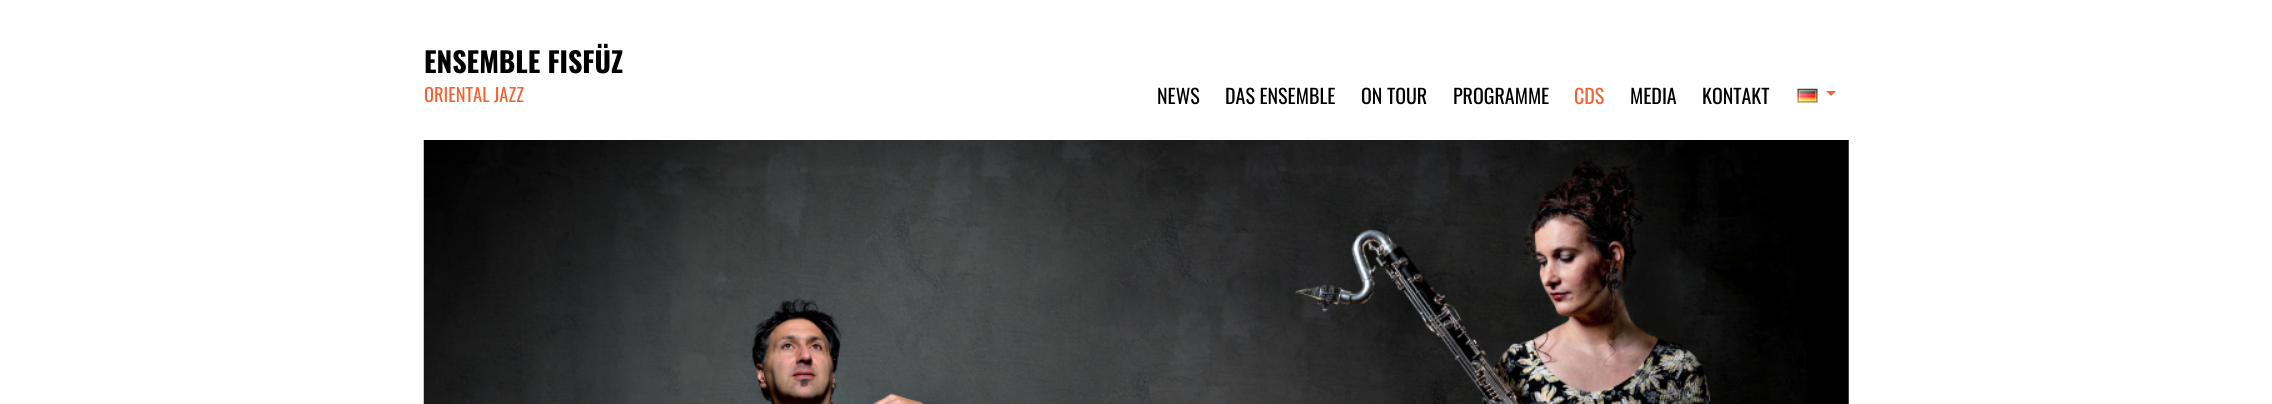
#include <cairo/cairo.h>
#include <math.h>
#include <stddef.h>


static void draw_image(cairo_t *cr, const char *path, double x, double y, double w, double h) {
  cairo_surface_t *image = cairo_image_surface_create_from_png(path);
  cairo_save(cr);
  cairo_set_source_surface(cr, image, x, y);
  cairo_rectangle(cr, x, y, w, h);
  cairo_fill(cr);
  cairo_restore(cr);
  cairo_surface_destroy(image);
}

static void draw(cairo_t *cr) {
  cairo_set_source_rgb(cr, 1, 1, 1);
  cairo_paint(cr);
  draw_image(cr, "images/1.png", 1797, 88, 21, 15);
  cairo_set_source_rgb(cr, 240 / 255.0, 100 / 255.0, 52 / 255.0);
  cairo_new_path(cr);
  cairo_move_to(cr, 1826, 91);
  cairo_line_to(cr, 1836, 91);
  cairo_line_to(cr, 1831, 96);
  cairo_close_path(cr);
  cairo_fill(cr);
  draw_image(cr, "images/2.png", 423, 140, 1426, 264);
  cairo_select_font_face(cr, "Oswald", CAIRO_FONT_SLANT_NORMAL, CAIRO_FONT_WEIGHT_BOLD);
  cairo_set_font_size(cr, 28);
  cairo_set_source_rgb(cr, 0, 0, 0);
  cairo_move_to(cr, 424, 73);
  cairo_show_text(cr, "ENSEMBLE FISFÜZ");
  cairo_select_font_face(cr, "Oswald", CAIRO_FONT_SLANT_NORMAL, CAIRO_FONT_WEIGHT_NORMAL);
  cairo_set_font_size(cr, 18.5);
  cairo_set_source_rgb(cr, 240 / 255.0, 100 / 255.0, 52 / 255.0);
  cairo_move_to(cr, 424, 102);
  cairo_show_text(cr, "ORIENTAL JAZZ");
  cairo_set_font_size(cr, 20);
  cairo_set_source_rgb(cr, 0, 0, 0);
  cairo_move_to(cr, 1157, 104);
  cairo_show_text(cr, "NEWS");
  cairo_move_to(cr, 1225, 104);
  cairo_show_text(cr, "DAS ENSEMBLE");
  cairo_move_to(cr, 1361, 104);
  cairo_show_text(cr, "ON TOUR");
  cairo_move_to(cr, 1453, 104);
  cairo_show_text(cr, "PROGRAMME");
  cairo_set_source_rgb(cr, 240 / 255.0, 100 / 255.0, 52 / 255.0);
  cairo_move_to(cr, 1574, 104);
  cairo_show_text(cr, "CDS");
  cairo_set_source_rgb(cr, 0, 0, 0);
  cairo_move_to(cr, 1630, 104);
  cairo_show_text(cr, "MEDIA");
  cairo_move_to(cr, 1702, 104);
  cairo_show_text(cr, "KONTAKT");
}

int main(void) {
  cairo_surface_t *surface = cairo_image_surface_create(CAIRO_FORMAT_RGB24, 2272, 404);
  cairo_t *cr = cairo_create(surface);
  cairo_font_options_t *options = cairo_font_options_create();
  cairo_font_options_set_hint_metrics(options, CAIRO_HINT_METRICS_OFF);
  cairo_font_options_set_hint_style(options, CAIRO_HINT_STYLE_NONE);
  cairo_set_font_options(cr, options);
  cairo_set_miter_limit(cr, 4);
  draw(cr);
  cairo_surface_write_to_png(surface, "out.png");
  cairo_font_options_destroy(options);
  cairo_destroy(cr);
  cairo_surface_destroy(surface);
  return 0;
}
